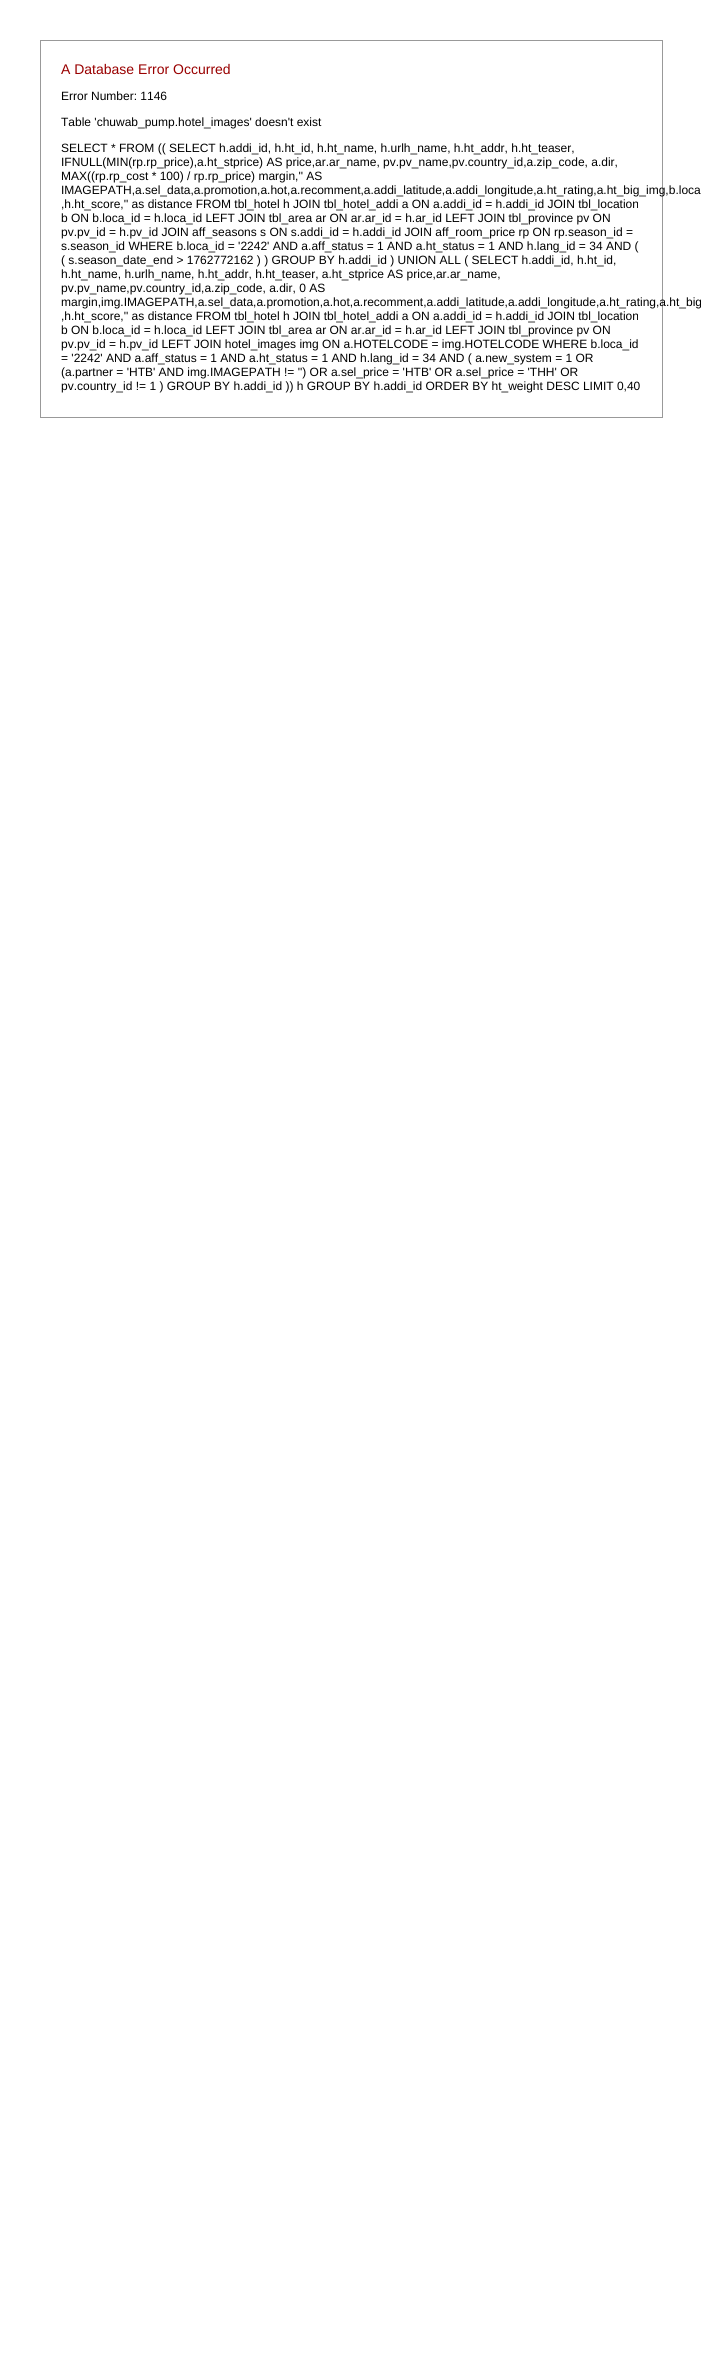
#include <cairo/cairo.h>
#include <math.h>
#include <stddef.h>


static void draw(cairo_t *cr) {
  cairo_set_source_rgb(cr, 1, 1, 1);
  cairo_paint(cr);
  cairo_rectangle(cr, 40.5, 40.5, 622, 377);
  cairo_set_source_rgb(cr, 153 / 255.0, 153 / 255.0, 153 / 255.0);
  cairo_set_line_width(cr, 1);
  cairo_stroke(cr);
  cairo_select_font_face(cr, "Liberation Sans", CAIRO_FONT_SLANT_NORMAL, CAIRO_FONT_WEIGHT_NORMAL);
  cairo_set_font_size(cr, 14);
  cairo_set_source_rgb(cr, 153 / 255.0, 0, 0);
  cairo_move_to(cr, 61, 74);
  cairo_show_text(cr, "A Database Error Occurred");
  cairo_set_font_size(cr, 12);
  cairo_set_source_rgb(cr, 0, 0, 0);
  cairo_move_to(cr, 61, 100);
  cairo_show_text(cr, "Error Number: 1146");
  cairo_move_to(cr, 61, 126);
  cairo_show_text(cr, "Table 'chuwab_pump.hotel_images' doesn't exist");
  cairo_move_to(cr, 61, 152);
  cairo_show_text(cr, "SELECT * FROM (( SELECT h.addi_id, h.ht_id, h.ht_name, h.urlh_name, h.ht_addr, h.ht_teaser,");
  cairo_move_to(cr, 61, 166);
  cairo_show_text(cr, "IFNULL(MIN(rp.rp_price),a.ht_stprice) AS price,ar.ar_name, pv.pv_name,pv.country_id,a.zip_code, a.dir,");
  cairo_move_to(cr, 61, 180);
  cairo_show_text(cr, "MAX((rp.rp_cost * 100) / rp.rp_price) margin,'' AS");
  cairo_move_to(cr, 61, 194);
  cairo_show_text(cr, "IMAGEPATH,a.sel_data,a.promotion,a.hot,a.recomment,a.addi_latitude,a.addi_longitude,a.ht_rating,a.ht_big_img,b.loca");
  cairo_move_to(cr, 61, 208);
  cairo_show_text(cr, ",h.ht_score,'' as distance FROM tbl_hotel h JOIN tbl_hotel_addi a ON a.addi_id = h.addi_id JOIN tbl_location");
  cairo_move_to(cr, 61, 222);
  cairo_show_text(cr, "b ON b.loca_id = h.loca_id LEFT JOIN tbl_area ar ON ar.ar_id = h.ar_id LEFT JOIN tbl_province pv ON");
  cairo_move_to(cr, 61, 236);
  cairo_show_text(cr, "pv.pv_id = h.pv_id JOIN aff_seasons s ON s.addi_id = h.addi_id JOIN aff_room_price rp ON rp.season_id =");
  cairo_move_to(cr, 61, 250);
  cairo_show_text(cr, "s.season_id WHERE b.loca_id = '2242' AND a.aff_status = 1 AND a.ht_status = 1 AND h.lang_id = 34 AND (");
  cairo_move_to(cr, 61, 264);
  cairo_show_text(cr, "( s.season_date_end > 1762772162 ) ) GROUP BY h.addi_id ) UNION ALL ( SELECT h.addi_id, h.ht_id,");
  cairo_move_to(cr, 61, 278);
  cairo_show_text(cr, "h.ht_name, h.urlh_name, h.ht_addr, h.ht_teaser, a.ht_stprice AS price,ar.ar_name,");
  cairo_move_to(cr, 61, 292);
  cairo_show_text(cr, "pv.pv_name,pv.country_id,a.zip_code, a.dir, 0 AS");
  cairo_move_to(cr, 61, 306);
  cairo_show_text(cr, "margin,img.IMAGEPATH,a.sel_data,a.promotion,a.hot,a.recomment,a.addi_latitude,a.addi_longitude,a.ht_rating,a.ht_big");
  cairo_move_to(cr, 61, 320);
  cairo_show_text(cr, ",h.ht_score,'' as distance FROM tbl_hotel h JOIN tbl_hotel_addi a ON a.addi_id = h.addi_id JOIN tbl_location");
  cairo_move_to(cr, 61, 334);
  cairo_show_text(cr, "b ON b.loca_id = h.loca_id LEFT JOIN tbl_area ar ON ar.ar_id = h.ar_id LEFT JOIN tbl_province pv ON");
  cairo_move_to(cr, 61, 348);
  cairo_show_text(cr, "pv.pv_id = h.pv_id LEFT JOIN hotel_images img ON a.HOTELCODE = img.HOTELCODE WHERE b.loca_id");
  cairo_move_to(cr, 61, 362);
  cairo_show_text(cr, "= '2242' AND a.aff_status = 1 AND a.ht_status = 1 AND h.lang_id = 34 AND ( a.new_system = 1 OR");
  cairo_move_to(cr, 61, 376);
  cairo_show_text(cr, "(a.partner = 'HTB' AND img.IMAGEPATH != '') OR a.sel_price = 'HTB' OR a.sel_price = 'THH' OR");
  cairo_move_to(cr, 61, 390);
  cairo_show_text(cr, "pv.country_id != 1 ) GROUP BY h.addi_id )) h GROUP BY h.addi_id ORDER BY ht_weight DESC LIMIT 0,40");
}

int main(void) {
  cairo_surface_t *surface = cairo_image_surface_create(CAIRO_FORMAT_RGB24, 703, 2377);
  cairo_t *cr = cairo_create(surface);
  cairo_font_options_t *options = cairo_font_options_create();
  cairo_font_options_set_hint_metrics(options, CAIRO_HINT_METRICS_OFF);
  cairo_font_options_set_hint_style(options, CAIRO_HINT_STYLE_NONE);
  cairo_set_font_options(cr, options);
  cairo_set_miter_limit(cr, 4);
  draw(cr);
  cairo_surface_write_to_png(surface, "out.png");
  cairo_font_options_destroy(options);
  cairo_destroy(cr);
  cairo_surface_destroy(surface);
  return 0;
}
